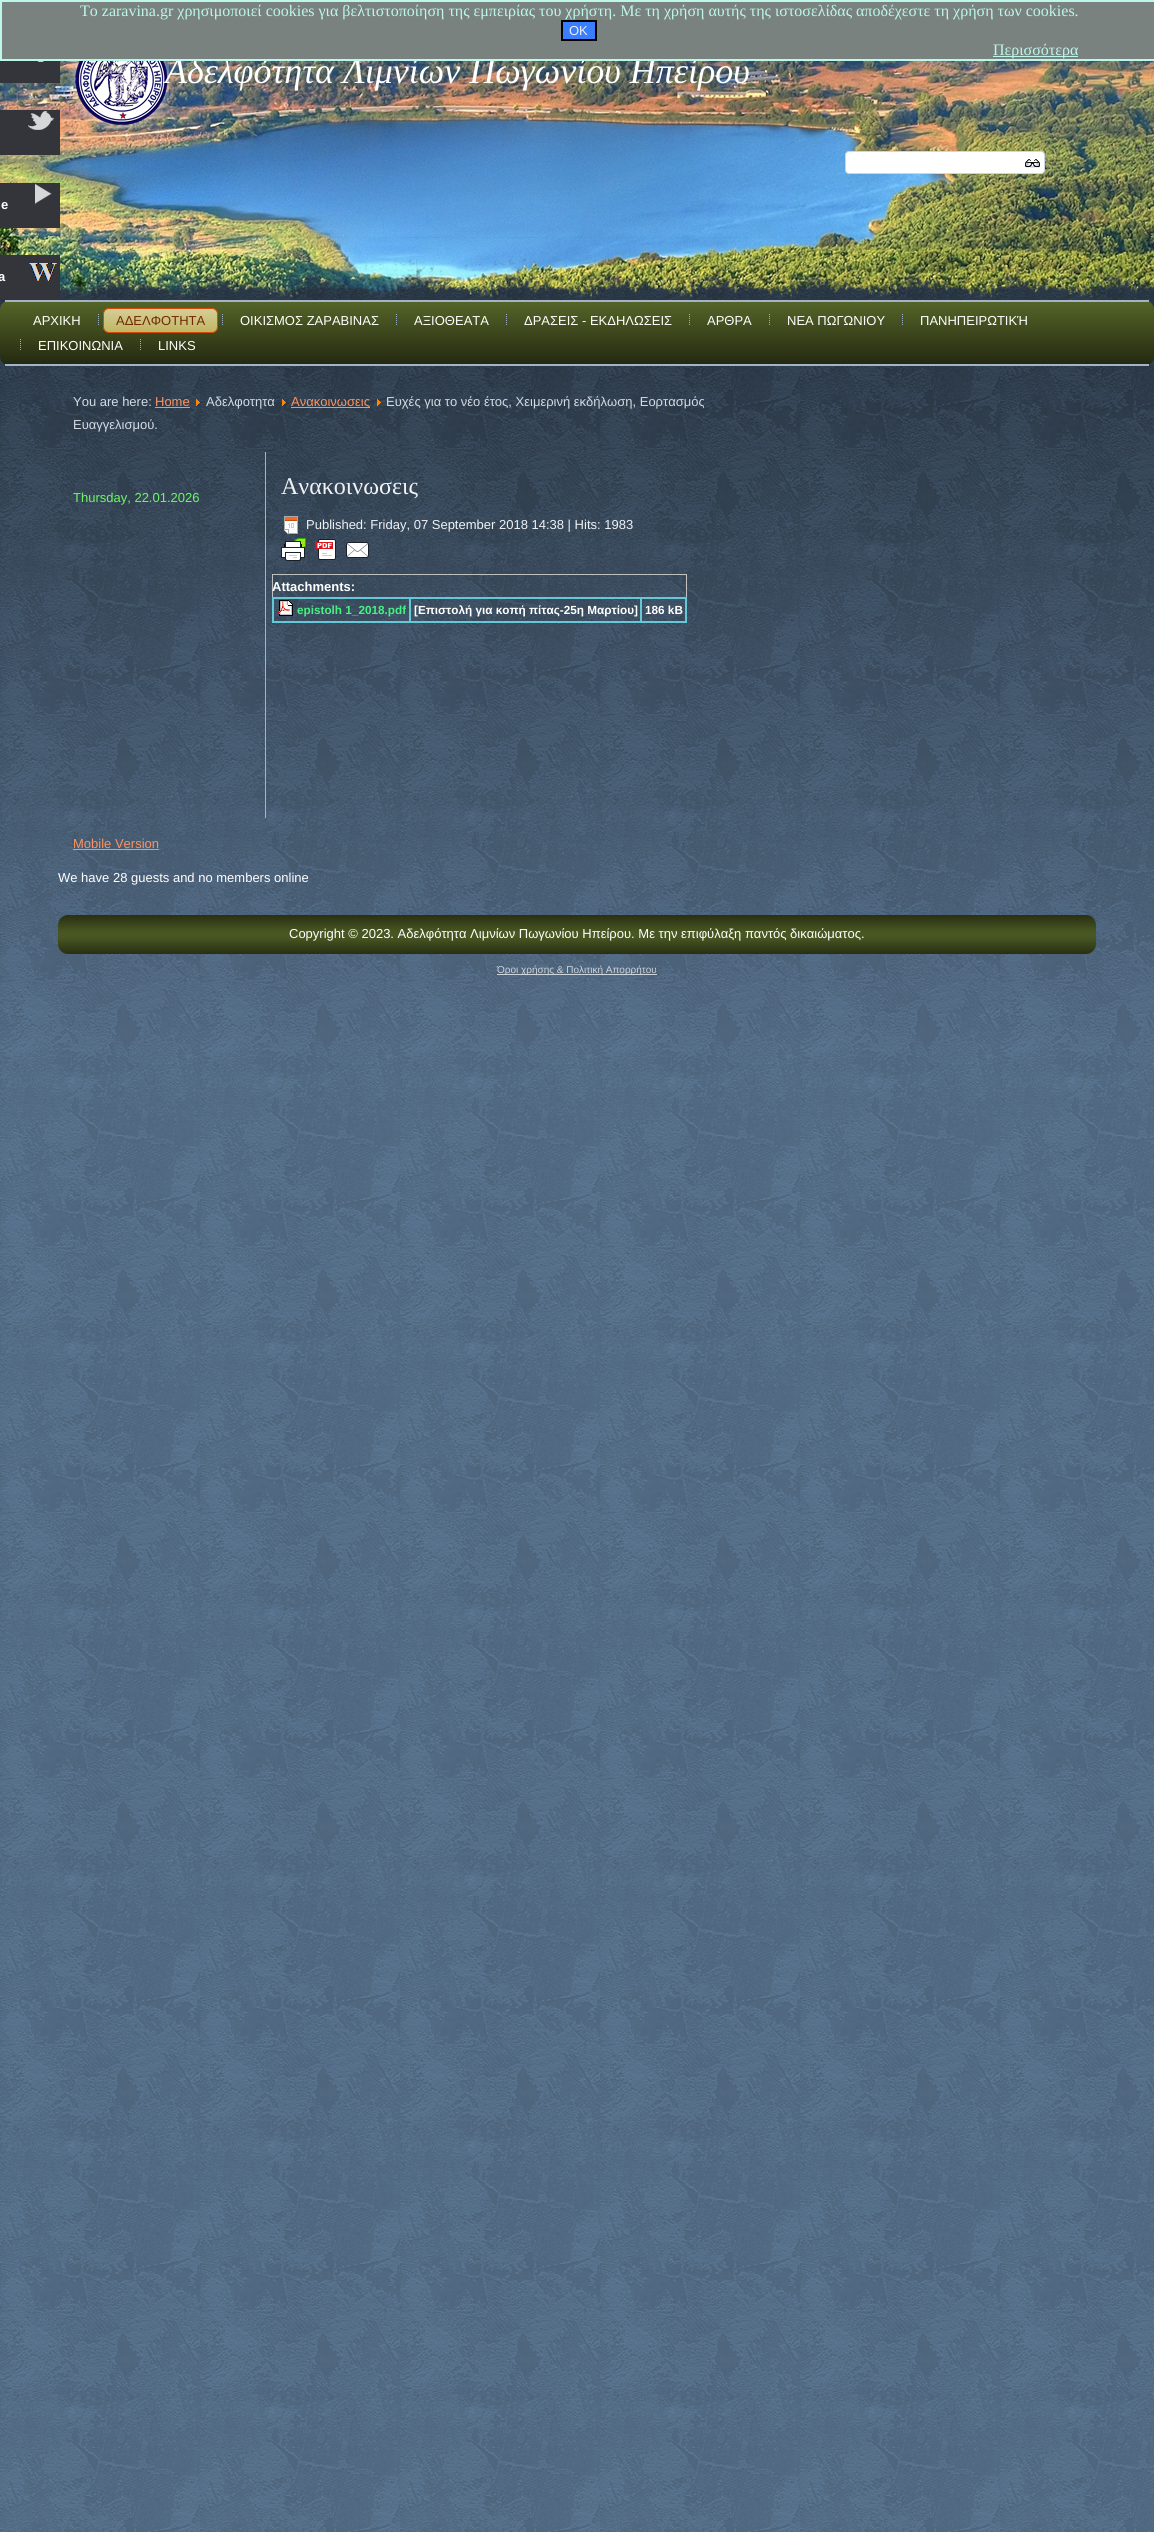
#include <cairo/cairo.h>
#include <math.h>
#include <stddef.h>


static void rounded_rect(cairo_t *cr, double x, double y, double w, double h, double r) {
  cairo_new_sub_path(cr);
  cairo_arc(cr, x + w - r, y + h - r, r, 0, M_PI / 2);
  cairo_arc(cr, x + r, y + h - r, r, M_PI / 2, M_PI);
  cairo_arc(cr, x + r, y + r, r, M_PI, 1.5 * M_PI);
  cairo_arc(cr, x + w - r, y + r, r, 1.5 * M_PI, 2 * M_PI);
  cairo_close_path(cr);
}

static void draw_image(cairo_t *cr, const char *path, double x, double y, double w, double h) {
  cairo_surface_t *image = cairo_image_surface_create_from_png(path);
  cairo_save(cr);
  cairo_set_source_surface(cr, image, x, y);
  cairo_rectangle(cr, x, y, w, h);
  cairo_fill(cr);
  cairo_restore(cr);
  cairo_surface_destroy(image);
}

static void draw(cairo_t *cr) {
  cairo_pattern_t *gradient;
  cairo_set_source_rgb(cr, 1, 1, 1);
  cairo_paint(cr);
  draw_image(cr, "images/1.png", 0, 237, 1154, 2295);
  draw_image(cr, "images/2.png", 0, 61, 1154, 237);
  draw_image(cr, "images/3.png", 66, 61, 103, 69);
  cairo_set_source_rgb(cr, 1, 1, 1);
  rounded_rect(cr, 845.5, 151.5, 199, 22, 3.5);
  cairo_fill_preserve(cr);
  cairo_set_source_rgb(cr, 204 / 255.0, 214 / 255.0, 224 / 255.0);
  cairo_set_line_width(cr, 1);
  cairo_stroke(cr);
  draw_image(cr, "images/4.png", 1025, 159, 15, 9);
  cairo_set_source_rgb(cr, 51 / 255.0, 53 / 255.0, 59 / 255.0);
  cairo_rectangle(cr, 0, 61, 60, 22);
  cairo_fill(cr);
  draw_image(cr, "images/5.png", 37, 61, 7, 1);
  cairo_rectangle(cr, 0, 110, 60, 45);
  cairo_fill(cr);
  draw_image(cr, "images/6.png", 28, 111, 26, 19);
  cairo_rectangle(cr, 0, 183, 60, 45);
  cairo_fill(cr);
  draw_image(cr, "images/7.png", 35, 183, 17, 22);
  cairo_rectangle(cr, 0, 255, 60, 45);
  cairo_fill(cr);
  draw_image(cr, "images/8.png", 29, 263, 28, 18);
  cairo_set_source_rgb(cr, 252 / 255.0, 147 / 255.0, 95 / 255.0);
  cairo_rectangle(cr, 155, 407, 35, 1);
  cairo_fill(cr);
  draw_image(cr, "images/9.png", 196, 399, 4, 7);
  draw_image(cr, "images/10.png", 282, 399, 4, 7);
  cairo_rectangle(cr, 291, 407, 79, 1);
  cairo_fill(cr);
  draw_image(cr, "images/11.png", 377, 399, 4, 7);
  cairo_set_source_rgb(cr, 163 / 255.0, 180 / 255.0, 200 / 255.0);
  cairo_rectangle(cr, 265, 452, 1, 366);
  cairo_fill(cr);
  draw_image(cr, "images/12.png", 284, 516, 14, 18);
  draw_image(cr, "images/13.png", 281, 538, 88, 23);
  cairo_set_source_rgb(cr, 192 / 255.0, 192 / 255.0, 192 / 255.0);
  cairo_rectangle(cr, 272, 574, 415, 1);
  cairo_fill(cr);
  cairo_rectangle(cr, 686, 574, 1, 23);
  cairo_fill(cr);
  cairo_rectangle(cr, 272, 574, 1, 23);
  cairo_fill(cr);
  cairo_set_source_rgb(cr, 101 / 255.0, 200 / 255.0, 215 / 255.0);
  cairo_rectangle(cr, 640, 597, 47, 2);
  cairo_fill(cr);
  cairo_rectangle(cr, 685, 597, 2, 26);
  cairo_fill(cr);
  cairo_rectangle(cr, 640, 621, 47, 2);
  cairo_fill(cr);
  cairo_rectangle(cr, 640, 597, 2, 26);
  cairo_fill(cr);
  cairo_rectangle(cr, 409, 597, 233, 2);
  cairo_fill(cr);
  cairo_rectangle(cr, 409, 621, 233, 2);
  cairo_fill(cr);
  cairo_rectangle(cr, 409, 597, 2, 26);
  cairo_fill(cr);
  cairo_rectangle(cr, 272, 597, 139, 2);
  cairo_fill(cr);
  cairo_rectangle(cr, 272, 621, 139, 2);
  cairo_fill(cr);
  cairo_rectangle(cr, 272, 597, 2, 26);
  cairo_fill(cr);
  draw_image(cr, "images/14.png", 277, 600, 16, 16);
  cairo_set_source_rgb(cr, 252 / 255.0, 147 / 255.0, 95 / 255.0);
  cairo_rectangle(cr, 73, 849, 86, 1);
  cairo_fill(cr);
  gradient = cairo_pattern_create_linear(577, 915, 577, 954);
  cairo_pattern_add_color_stop_rgba(gradient, 0, 40 / 255.0, 47 / 255.0, 19 / 255.0, 1);
  cairo_pattern_add_color_stop_rgba(gradient, 0.4, 70 / 255.0, 84 / 255.0, 33 / 255.0, 1);
  cairo_pattern_add_color_stop_rgba(gradient, 0.5, 73 / 255.0, 88 / 255.0, 35 / 255.0, 1);
  cairo_pattern_add_color_stop_rgba(gradient, 0.6, 70 / 255.0, 84 / 255.0, 33 / 255.0, 1);
  cairo_pattern_add_color_stop_rgba(gradient, 1, 40 / 255.0, 47 / 255.0, 19 / 255.0, 1);
  cairo_set_source(cr, gradient);
  cairo_pattern_destroy(gradient);
  rounded_rect(cr, 58, 915, 1038, 39, 10);
  cairo_fill(cr);
  gradient = cairo_pattern_create_linear(577, 300, 577, 366);
  cairo_pattern_add_color_stop_rgba(gradient, 0, 86 / 255.0, 102 / 255.0, 41 / 255.0, 1);
  cairo_pattern_add_color_stop_rgba(gradient, 1, 34 / 255.0, 40 / 255.0, 16 / 255.0, 1);
  cairo_set_source(cr, gradient);
  cairo_pattern_destroy(gradient);
  rounded_rect(cr, 0, 300, 1154, 66, 10);
  cairo_fill(cr);
  cairo_set_source_rgb(cr, 163 / 255.0, 180 / 255.0, 200 / 255.0);
  cairo_rectangle(cr, 5, 300, 1144, 2);
  cairo_fill(cr);
  cairo_rectangle(cr, 5, 364, 1144, 2);
  cairo_fill(cr);
  draw_image(cr, "images/15.png", 98, 314, 1, 11);
  gradient = cairo_pattern_create_linear(161, 308, 161, 333);
  cairo_pattern_add_color_stop_rgba(gradient, 0, 214 / 255.0, 207 / 255.0, 153 / 255.0, 1);
  cairo_pattern_add_color_stop_rgba(gradient, 1, 192 / 255.0, 181 / 255.0, 98 / 255.0, 1);
  cairo_set_source(cr, gradient);
  cairo_pattern_destroy(gradient);
  rounded_rect(cr, 103.5, 308.5, 114, 24, 5.5);
  cairo_fill_preserve(cr);
  cairo_set_source_rgb(cr, 215 / 255.0, 75 / 255.0, 4 / 255.0);
  cairo_stroke(cr);
  draw_image(cr, "images/15.png", 222, 314, 1, 11);
  draw_image(cr, "images/15.png", 396, 314, 1, 11);
  draw_image(cr, "images/15.png", 506, 314, 1, 11);
  draw_image(cr, "images/15.png", 689, 314, 1, 11);
  draw_image(cr, "images/15.png", 769, 314, 1, 11);
  draw_image(cr, "images/15.png", 902, 314, 1, 11);
  draw_image(cr, "images/16.png", 20, 339, 1, 11);
  draw_image(cr, "images/16.png", 140, 339, 1, 11);
  cairo_set_source_rgb(cr, 205 / 255.0, 212 / 255.0, 218 / 255.0);
  cairo_rectangle(cr, 497, 974, 160, 1);
  cairo_fill(cr);
  cairo_select_font_face(cr, "Liberation Serif", CAIRO_FONT_SLANT_ITALIC, CAIRO_FONT_WEIGHT_NORMAL);
  cairo_set_font_size(cr, 36);
  cairo_set_source_rgb(cr, 1, 1, 1);
  cairo_move_to(cr, 165, 83);
  cairo_show_text(cr, "Αδελφότητα Λιμνίων Πωγωνίου Ηπείρου");
  cairo_set_source_rgb(cr, 122 / 255.0, 130 / 255.0, 128 / 255.0);
  cairo_rectangle(cr, 1, 1, 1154, 59);
  cairo_fill_preserve(cr);
  cairo_set_source_rgb(cr, 188 / 255.0, 247 / 255.0, 233 / 255.0);
  cairo_set_line_width(cr, 2);
  cairo_stroke(cr);
  cairo_rectangle(cr, 993, 56, 85, 1);
  cairo_fill(cr);
  cairo_select_font_face(cr, "Liberation Serif", CAIRO_FONT_SLANT_NORMAL, CAIRO_FONT_WEIGHT_NORMAL);
  cairo_set_font_size(cr, 16);
  cairo_move_to(cr, 993, 55);
  cairo_show_text(cr, "Περισσότερα");
  cairo_set_source_rgb(cr, 56 / 255.0, 126 / 255.0, 1);
  cairo_rectangle(cr, 562, 21, 34, 19);
  cairo_fill_preserve(cr);
  cairo_set_source_rgb(cr, 0, 0, 0);
  cairo_stroke(cr);
  cairo_select_font_face(cr, "Liberation Sans", CAIRO_FONT_SLANT_NORMAL, CAIRO_FONT_WEIGHT_NORMAL);
  cairo_set_font_size(cr, 13);
  cairo_set_source_rgb(cr, 238 / 255.0, 238 / 255.0, 238 / 255.0);
  cairo_move_to(cr, 569, 35);
  cairo_show_text(cr, "OK");
  cairo_select_font_face(cr, "Liberation Serif", CAIRO_FONT_SLANT_NORMAL, CAIRO_FONT_WEIGHT_NORMAL);
  cairo_set_font_size(cr, 16);
  cairo_set_source_rgb(cr, 188 / 255.0, 247 / 255.0, 233 / 255.0);
  cairo_move_to(cr, 80, 16);
  cairo_show_text(cr, "To zaravina.gr χρησιμοποιεί cookies για βελτιστοποίηση της εμπειρίας του χρήστη. Με τη χρήση αυτής της ιστοσελίδας αποδέχεστε τη χρήση των cookies.");
  cairo_select_font_face(cr, "Liberation Sans", CAIRO_FONT_SLANT_NORMAL, CAIRO_FONT_WEIGHT_BOLD);
  cairo_set_font_size(cr, 13);
  cairo_set_source_rgb(cr, 1, 1, 1);
  cairo_move_to(cr, 1, 209);
  cairo_show_text(cr, "e");
  cairo_move_to(cr, -2, 281);
  cairo_show_text(cr, "a");
  cairo_select_font_face(cr, "Liberation Sans", CAIRO_FONT_SLANT_NORMAL, CAIRO_FONT_WEIGHT_NORMAL);
  cairo_set_source_rgb(cr, 210 / 255.0, 219 / 255.0, 228 / 255.0);
  cairo_move_to(cr, 73, 406);
  cairo_show_text(cr, "You are here:");
  cairo_set_source_rgb(cr, 252 / 255.0, 147 / 255.0, 95 / 255.0);
  cairo_move_to(cr, 155, 406);
  cairo_show_text(cr, "Home");
  cairo_set_source_rgb(cr, 210 / 255.0, 219 / 255.0, 228 / 255.0);
  cairo_move_to(cr, 206, 406);
  cairo_show_text(cr, "Αδελφοτητα");
  cairo_set_source_rgb(cr, 252 / 255.0, 147 / 255.0, 95 / 255.0);
  cairo_move_to(cr, 291, 406);
  cairo_show_text(cr, "Ανακοινωσεις");
  cairo_set_source_rgb(cr, 210 / 255.0, 219 / 255.0, 228 / 255.0);
  cairo_move_to(cr, 386, 406);
  cairo_show_text(cr, "Ευχές για το νέο έτος, Χειμερινή εκδήλωση, Εορτασμός");
  cairo_move_to(cr, 73, 429);
  cairo_show_text(cr, "Ευαγγελισμού.");
  cairo_set_source_rgb(cr, 108 / 255.0, 247 / 255.0, 103 / 255.0);
  cairo_move_to(cr, 73, 502);
  cairo_show_text(cr, "Thursday, 22.01.2026");
  cairo_select_font_face(cr, "Liberation Serif", CAIRO_FONT_SLANT_NORMAL, CAIRO_FONT_WEIGHT_NORMAL);
  cairo_set_font_size(cr, 24);
  cairo_set_source_rgb(cr, 239 / 255.0, 242 / 255.0, 245 / 255.0);
  cairo_move_to(cr, 281, 494);
  cairo_show_text(cr, "Ανακοινωσεις");
  cairo_select_font_face(cr, "Liberation Sans", CAIRO_FONT_SLANT_NORMAL, CAIRO_FONT_WEIGHT_NORMAL);
  cairo_set_font_size(cr, 13);
  cairo_move_to(cr, 306, 529);
  cairo_show_text(cr, "Published: Friday, 07 September 2018 14:38 | Hits: 1983");
  cairo_select_font_face(cr, "Liberation Sans", CAIRO_FONT_SLANT_NORMAL, CAIRO_FONT_WEIGHT_BOLD);
  cairo_set_source_rgb(cr, 1, 1, 1);
  cairo_move_to(cr, 272, 591);
  cairo_show_text(cr, "Attachments:");
  cairo_set_font_size(cr, 11.75);
  cairo_set_source_rgb(cr, 69 / 255.0, 242 / 255.0, 130 / 255.0);
  cairo_move_to(cr, 297, 614);
  cairo_show_text(cr, "epistolh 1_2018.pdf");
  cairo_set_source_rgb(cr, 1, 1, 1);
  cairo_move_to(cr, 414, 614);
  cairo_show_text(cr, "[Επιστολή για κοπή πίτας-25η Μαρτίου]");
  cairo_move_to(cr, 645, 614);
  cairo_show_text(cr, "186 kB");
  cairo_select_font_face(cr, "Liberation Sans", CAIRO_FONT_SLANT_NORMAL, CAIRO_FONT_WEIGHT_NORMAL);
  cairo_set_font_size(cr, 13);
  cairo_set_source_rgb(cr, 252 / 255.0, 147 / 255.0, 95 / 255.0);
  cairo_move_to(cr, 73, 848);
  cairo_show_text(cr, "Mobile Version");
  cairo_set_source_rgb(cr, 1, 1, 1);
  cairo_move_to(cr, 58, 882);
  cairo_show_text(cr, "We have 28 guests and no members online");
  cairo_move_to(cr, 289, 938);
  cairo_show_text(cr, "Copyright © 2023. Αδελφότητα Λιμνίων Πωγωνίου Ηπείρου. Με την επιφύλαξη παντός δικαιώματος.");
  cairo_move_to(cr, 33, 325);
  cairo_show_text(cr, "ΑΡΧΙΚΗ");
  cairo_set_source_rgb(cr, 115 / 255.0, 40 / 255.0, 2 / 255.0);
  cairo_move_to(cr, 116, 325);
  cairo_show_text(cr, "ΑΔΕΛΦΟΤΗΤΑ");
  cairo_set_source_rgb(cr, 1, 1, 1);
  cairo_move_to(cr, 240, 325);
  cairo_show_text(cr, "ΟΙΚΙΣΜΟΣ ΖΑΡΑΒΙΝΑΣ");
  cairo_move_to(cr, 414, 325);
  cairo_show_text(cr, "ΑΞΙΟΘΕΑΤΑ");
  cairo_move_to(cr, 524, 325);
  cairo_show_text(cr, "ΔΡΑΣΕΙΣ - ΕΚΔΗΛΩΣΕΙΣ");
  cairo_move_to(cr, 707, 325);
  cairo_show_text(cr, "ΑΡΘΡΑ");
  cairo_move_to(cr, 787, 325);
  cairo_show_text(cr, "ΝΕΑ ΠΩΓΩΝΙΟΥ");
  cairo_move_to(cr, 920, 325);
  cairo_show_text(cr, "ΠΑΝΗΠΕΙΡΩΤΙΚΉ");
  cairo_move_to(cr, 38, 350);
  cairo_show_text(cr, "ΕΠΙΚΟΙΝΩΝΙΑ");
  cairo_move_to(cr, 158, 350);
  cairo_show_text(cr, "LINKS");
  cairo_set_font_size(cr, 10);
  cairo_set_source_rgb(cr, 205 / 255.0, 212 / 255.0, 218 / 255.0);
  cairo_move_to(cr, 497, 973);
  cairo_show_text(cr, "Όροι χρήσης & Πολιτική Απορρήτου");
}

int main(void) {
  cairo_surface_t *surface = cairo_image_surface_create(CAIRO_FORMAT_RGB24, 1154, 2532);
  cairo_t *cr = cairo_create(surface);
  cairo_font_options_t *options = cairo_font_options_create();
  cairo_font_options_set_hint_metrics(options, CAIRO_HINT_METRICS_OFF);
  cairo_font_options_set_hint_style(options, CAIRO_HINT_STYLE_NONE);
  cairo_set_font_options(cr, options);
  cairo_set_miter_limit(cr, 4);
  draw(cr);
  cairo_surface_write_to_png(surface, "out.png");
  cairo_font_options_destroy(options);
  cairo_destroy(cr);
  cairo_surface_destroy(surface);
  return 0;
}
